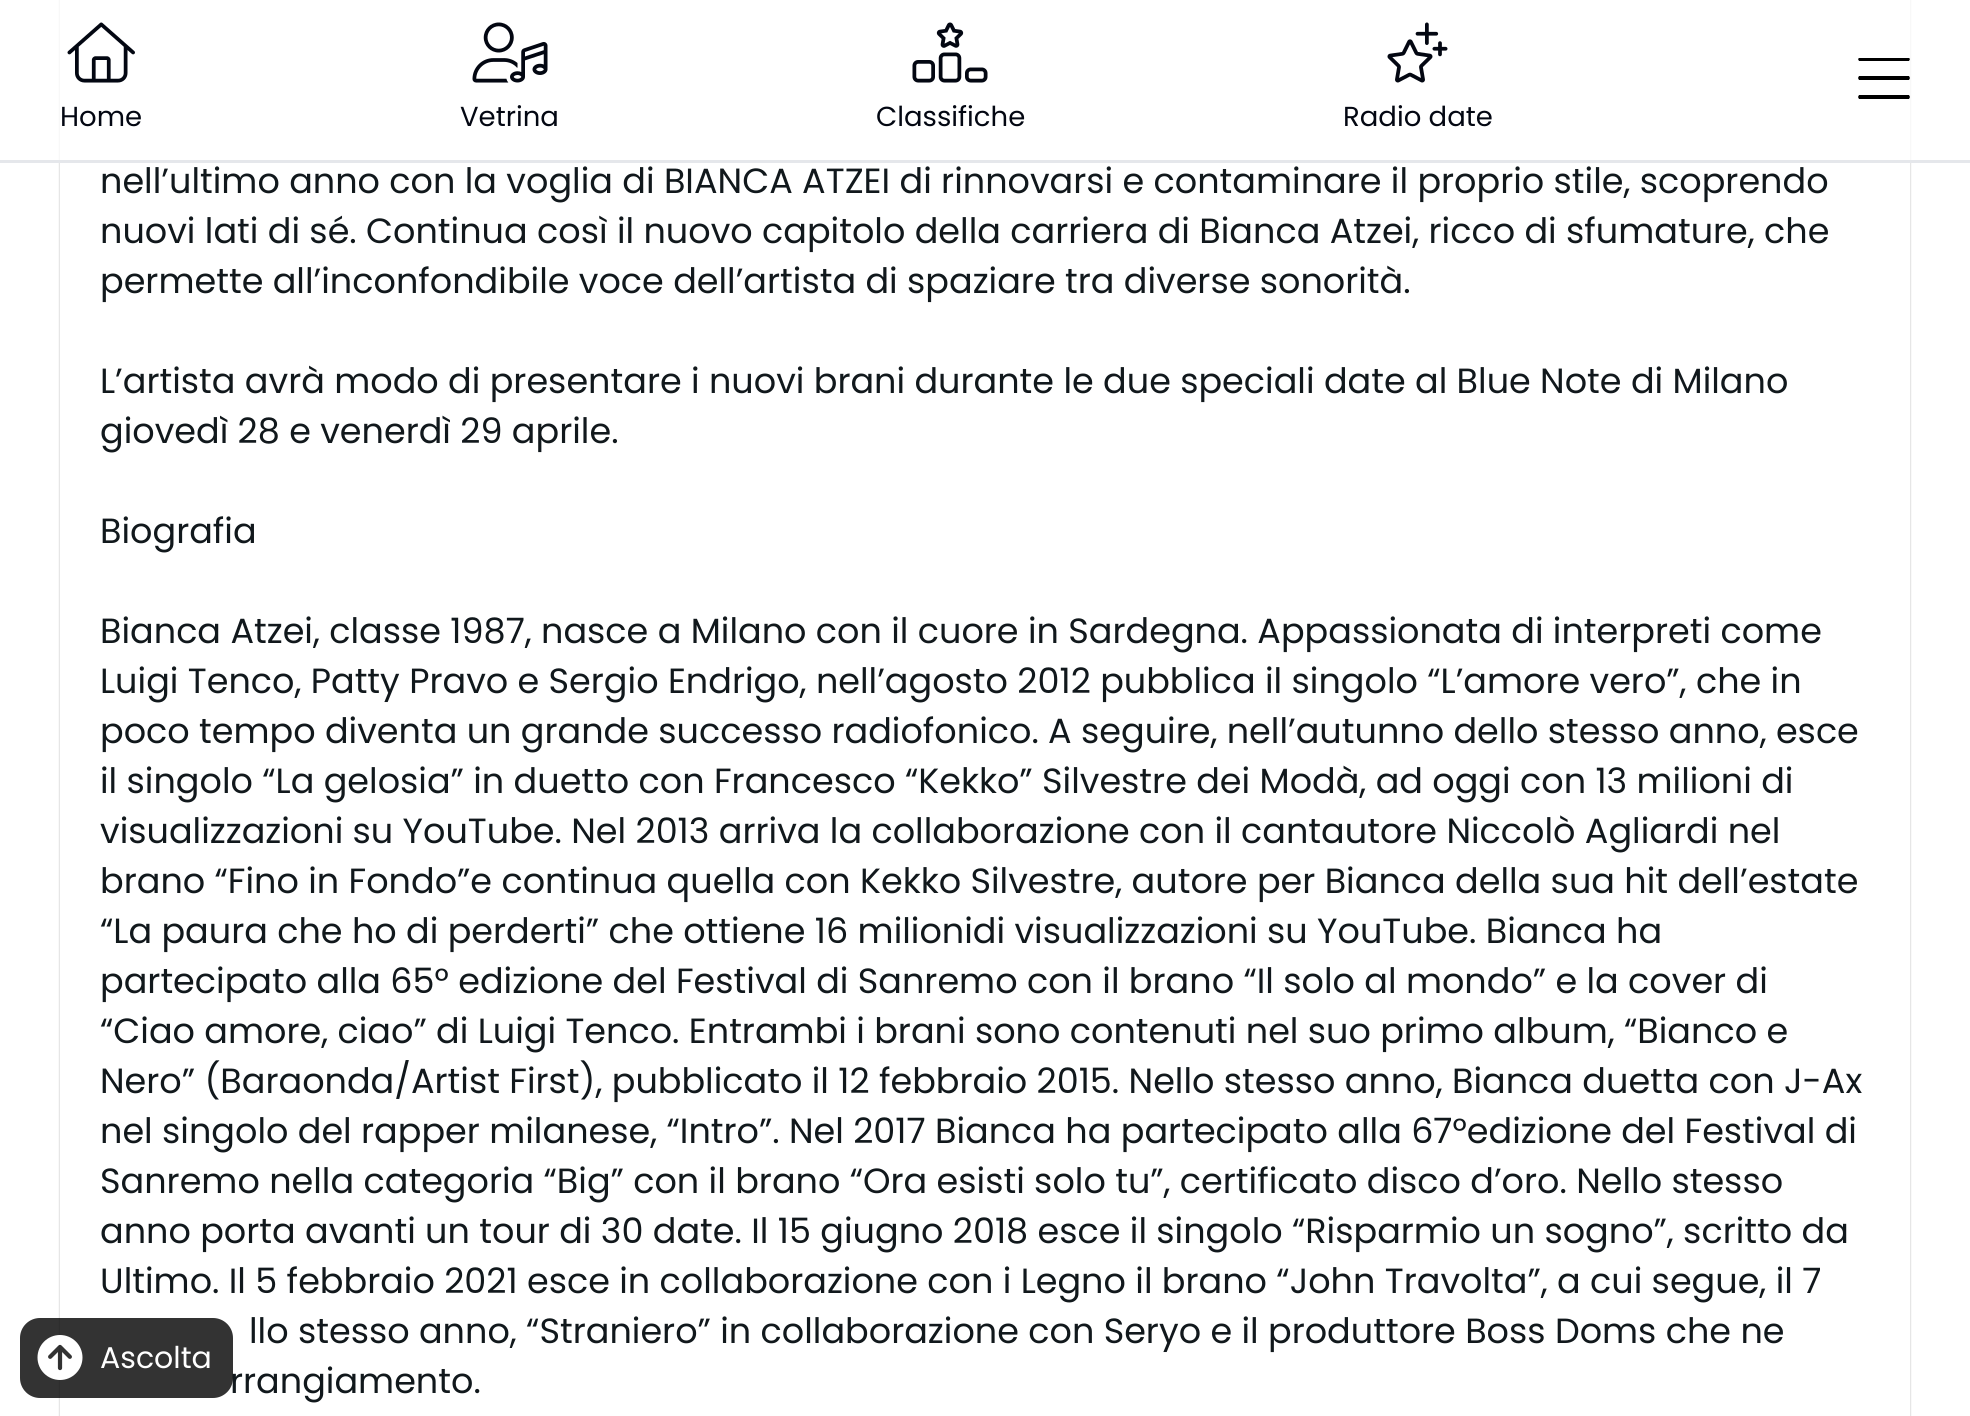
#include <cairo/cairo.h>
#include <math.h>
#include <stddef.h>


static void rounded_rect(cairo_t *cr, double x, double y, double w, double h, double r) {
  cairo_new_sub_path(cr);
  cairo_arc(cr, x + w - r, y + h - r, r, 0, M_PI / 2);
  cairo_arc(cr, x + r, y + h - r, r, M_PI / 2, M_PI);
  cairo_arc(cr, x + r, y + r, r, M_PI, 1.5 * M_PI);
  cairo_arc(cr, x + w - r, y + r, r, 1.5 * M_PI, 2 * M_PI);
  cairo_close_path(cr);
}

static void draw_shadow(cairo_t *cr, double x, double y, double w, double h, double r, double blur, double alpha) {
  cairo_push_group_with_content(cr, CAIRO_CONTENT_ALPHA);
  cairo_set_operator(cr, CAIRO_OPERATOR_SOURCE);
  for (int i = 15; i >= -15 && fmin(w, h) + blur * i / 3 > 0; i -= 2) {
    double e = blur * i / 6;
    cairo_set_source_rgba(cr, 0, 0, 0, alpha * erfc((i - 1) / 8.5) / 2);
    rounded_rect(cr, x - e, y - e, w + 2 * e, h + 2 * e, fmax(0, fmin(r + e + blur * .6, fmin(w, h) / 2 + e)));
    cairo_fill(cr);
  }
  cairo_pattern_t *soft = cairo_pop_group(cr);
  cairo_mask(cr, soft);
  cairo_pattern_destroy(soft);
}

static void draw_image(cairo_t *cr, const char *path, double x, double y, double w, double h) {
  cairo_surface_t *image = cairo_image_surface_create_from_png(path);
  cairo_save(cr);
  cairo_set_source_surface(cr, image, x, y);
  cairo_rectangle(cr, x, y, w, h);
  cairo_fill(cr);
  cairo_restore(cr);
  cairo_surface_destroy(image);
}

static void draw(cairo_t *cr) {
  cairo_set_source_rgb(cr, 1, 1, 1);
  cairo_paint(cr);
  cairo_save(cr);
  cairo_set_fill_rule(cr, CAIRO_FILL_RULE_EVEN_ODD);
  cairo_new_path(cr);
  cairo_move_to(cr, 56, 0);
  cairo_line_to(cr, 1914, 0);
  cairo_line_to(cr, 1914, 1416);
  cairo_line_to(cr, 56, 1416);
  cairo_close_path(cr);
  cairo_move_to(cr, 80, -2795);
  cairo_line_to(cr, 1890, -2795);
  cairo_curve_to(cr, 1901, -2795, 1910, -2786, 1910, -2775);
  cairo_line_to(cr, 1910, 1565);
  cairo_curve_to(cr, 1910, 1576, 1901, 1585, 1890, 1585);
  cairo_line_to(cr, 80, 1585);
  cairo_curve_to(cr, 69, 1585, 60, 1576, 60, 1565);
  cairo_line_to(cr, 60, -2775);
  cairo_curve_to(cr, 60, -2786, 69, -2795, 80, -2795);
  cairo_close_path(cr);
  cairo_clip(cr);
  cairo_set_source_rgb(cr, 0, 0, 0);
  draw_shadow(cr, 60, -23, 1850, 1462, 20, 1, 0.3);
  cairo_restore(cr);
  cairo_set_source_rgba(cr, 1, 1, 1, 0.7);
  cairo_rectangle(cr, 58, 0, 1854, 160);
  cairo_fill(cr);
  cairo_set_source_rgb(cr, 229 / 255.0, 231 / 255.0, 235 / 255.0);
  cairo_rectangle(cr, 0, 160, 1970, 3);
  cairo_fill(cr);
  cairo_set_source_rgb(cr, 0, 0, 0);
  cairo_set_fill_rule(cr, CAIRO_FILL_RULE_EVEN_ODD);
  cairo_new_path(cr);
  cairo_move_to(cr, 1858, 59);
  cairo_line_to(cr, 1859, 58);
  cairo_line_to(cr, 1909, 58);
  cairo_line_to(cr, 1910, 59);
  cairo_line_to(cr, 1909, 61);
  cairo_line_to(cr, 1859, 61);
  cairo_close_path(cr);
  cairo_move_to(cr, 1858, 78);
  cairo_line_to(cr, 1859, 80);
  cairo_line_to(cr, 1909, 80);
  cairo_line_to(cr, 1910, 78);
  cairo_line_to(cr, 1909, 76);
  cairo_line_to(cr, 1859, 76);
  cairo_close_path(cr);
  cairo_move_to(cr, 1910, 97);
  cairo_line_to(cr, 1909, 99);
  cairo_line_to(cr, 1859, 99);
  cairo_line_to(cr, 1858, 97);
  cairo_line_to(cr, 1859, 95);
  cairo_line_to(cr, 1909, 95);
  cairo_close_path(cr);
  cairo_fill(cr);
  draw_image(cr, "images/1.png", 67, 22, 68, 61);
  draw_image(cr, "images/2.png", 472, 22, 76, 61);
  draw_image(cr, "images/3.png", 912, 22, 76, 61);
  draw_image(cr, "images/4.png", 1387, 22, 61, 61);
  cairo_select_font_face(cr, "Poppins", CAIRO_FONT_SLANT_NORMAL, CAIRO_FONT_WEIGHT_NORMAL);
  cairo_set_font_size(cr, 27.5);
  cairo_set_source_rgb(cr, 3 / 255.0, 7 / 255.0, 18 / 255.0);
  cairo_move_to(cr, 60, 126);
  cairo_show_text(cr, "Home");
  cairo_move_to(cr, 460, 126);
  cairo_show_text(cr, "Vetrina");
  cairo_move_to(cr, 876, 126);
  cairo_show_text(cr, "Classifiche");
  cairo_move_to(cr, 1343, 126);
  cairo_show_text(cr, "Radio date");
  cairo_set_font_size(cr, 35);
  cairo_set_source_rgb(cr, 17 / 255.0, 24 / 255.0, 28 / 255.0);
  cairo_move_to(cr, 100, 193);
  cairo_show_text(cr, "nell’ultimo anno con la voglia di BIANCA ATZEI di rinnovarsi e contaminare il proprio stile, scoprendo");
  cairo_move_to(cr, 100, 243);
  cairo_show_text(cr, "nuovi lati di sé. Continua così il nuovo capitolo della carriera di Bianca Atzei, ricco di sfumature, che");
  cairo_move_to(cr, 100, 293);
  cairo_show_text(cr, "permette all’inconfondibile voce dell’artista di spaziare tra diverse sonorità.");
  cairo_move_to(cr, 100, 393);
  cairo_show_text(cr, "L’artista avrà modo di presentare i nuovi brani durante le due speciali date al Blue Note di Milano");
  cairo_move_to(cr, 100, 443);
  cairo_show_text(cr, "giovedì 28 e venerdì 29 aprile.");
  cairo_move_to(cr, 100, 543);
  cairo_show_text(cr, "Biografia");
  cairo_move_to(cr, 100, 643);
  cairo_show_text(cr, "Bianca Atzei, classe 1987, nasce a Milano con il cuore in Sardegna. Appassionata di interpreti come");
  cairo_move_to(cr, 100, 693);
  cairo_show_text(cr, "Luigi Tenco, Patty Pravo e Sergio Endrigo, nell’agosto 2012 pubblica il singolo “L’amore vero”, che in");
  cairo_move_to(cr, 100, 743);
  cairo_show_text(cr, "poco tempo diventa un grande successo radiofonico. A seguire, nell’autunno dello stesso anno, esce");
  cairo_move_to(cr, 100, 793);
  cairo_show_text(cr, "il singolo “La gelosia” in duetto con Francesco “Kekko” Silvestre dei Modà, ad oggi con 13 milioni di");
  cairo_move_to(cr, 100, 843);
  cairo_show_text(cr, "visualizzazioni su YouTube. Nel 2013 arriva la collaborazione con il cantautore Niccolò Agliardi nel");
  cairo_move_to(cr, 100, 893);
  cairo_show_text(cr, "brano “Fino in Fondo”e continua quella con Kekko Silvestre, autore per Bianca della sua hit dell’estate");
  cairo_move_to(cr, 100, 943);
  cairo_show_text(cr, "“La paura che ho di perderti” che ottiene 16 milionidi visualizzazioni su YouTube. Bianca ha");
  cairo_move_to(cr, 100, 993);
  cairo_show_text(cr, "partecipato alla 65° edizione del Festival di Sanremo con il brano “Il solo al mondo” e la cover di");
  cairo_move_to(cr, 100, 1043);
  cairo_show_text(cr, "“Ciao amore, ciao” di Luigi Tenco. Entrambi i brani sono contenuti nel suo primo album, “Bianco e");
  cairo_move_to(cr, 100, 1093);
  cairo_show_text(cr, "Nero” (Baraonda/Artist First), pubblicato il 12 febbraio 2015. Nello stesso anno, Bianca duetta con J-Ax");
  cairo_move_to(cr, 100, 1143);
  cairo_show_text(cr, "nel singolo del rapper milanese, “Intro”. Nel 2017 Bianca ha partecipato alla 67°edizione del Festival di");
  cairo_move_to(cr, 100, 1193);
  cairo_show_text(cr, "Sanremo nella categoria “Big” con il brano “Ora esisti solo tu”, certificato disco d’oro. Nello stesso");
  cairo_move_to(cr, 100, 1243);
  cairo_show_text(cr, "anno porta avanti un tour di 30 date. Il 15 giugno 2018 esce il singolo “Risparmio un sogno”, scritto da");
  cairo_move_to(cr, 100, 1293);
  cairo_show_text(cr, "Ultimo. Il 5 febbraio 2021 esce in collaborazione con i Legno il brano “John Travolta”, a cui segue, il 7");
  cairo_move_to(cr, 249, 1343);
  cairo_show_text(cr, "llo stesso anno, “Straniero” in collaborazione con Seryo e il produttore Boss Doms che ne");
  cairo_move_to(cr, 230, 1393);
  cairo_show_text(cr, "rrangiamento.");
  cairo_set_source_rgba(cr, 0, 0, 0, 0.8);
  rounded_rect(cr, 20, 1318, 213, 80, 20);
  cairo_fill(cr);
  draw_image(cr, "images/5.png", 37, 1335, 46, 45);
  cairo_set_font_size(cr, 30);
  cairo_set_source_rgb(cr, 1, 1, 1);
  cairo_move_to(cr, 100, 1368);
  cairo_show_text(cr, "Ascolta");
}

int main(void) {
  cairo_surface_t *surface = cairo_image_surface_create(CAIRO_FORMAT_RGB24, 1970, 1416);
  cairo_t *cr = cairo_create(surface);
  cairo_font_options_t *options = cairo_font_options_create();
  cairo_font_options_set_hint_metrics(options, CAIRO_HINT_METRICS_OFF);
  cairo_font_options_set_hint_style(options, CAIRO_HINT_STYLE_NONE);
  cairo_set_font_options(cr, options);
  cairo_set_miter_limit(cr, 4);
  draw(cr);
  cairo_surface_write_to_png(surface, "out.png");
  cairo_font_options_destroy(options);
  cairo_destroy(cr);
  cairo_surface_destroy(surface);
  return 0;
}
